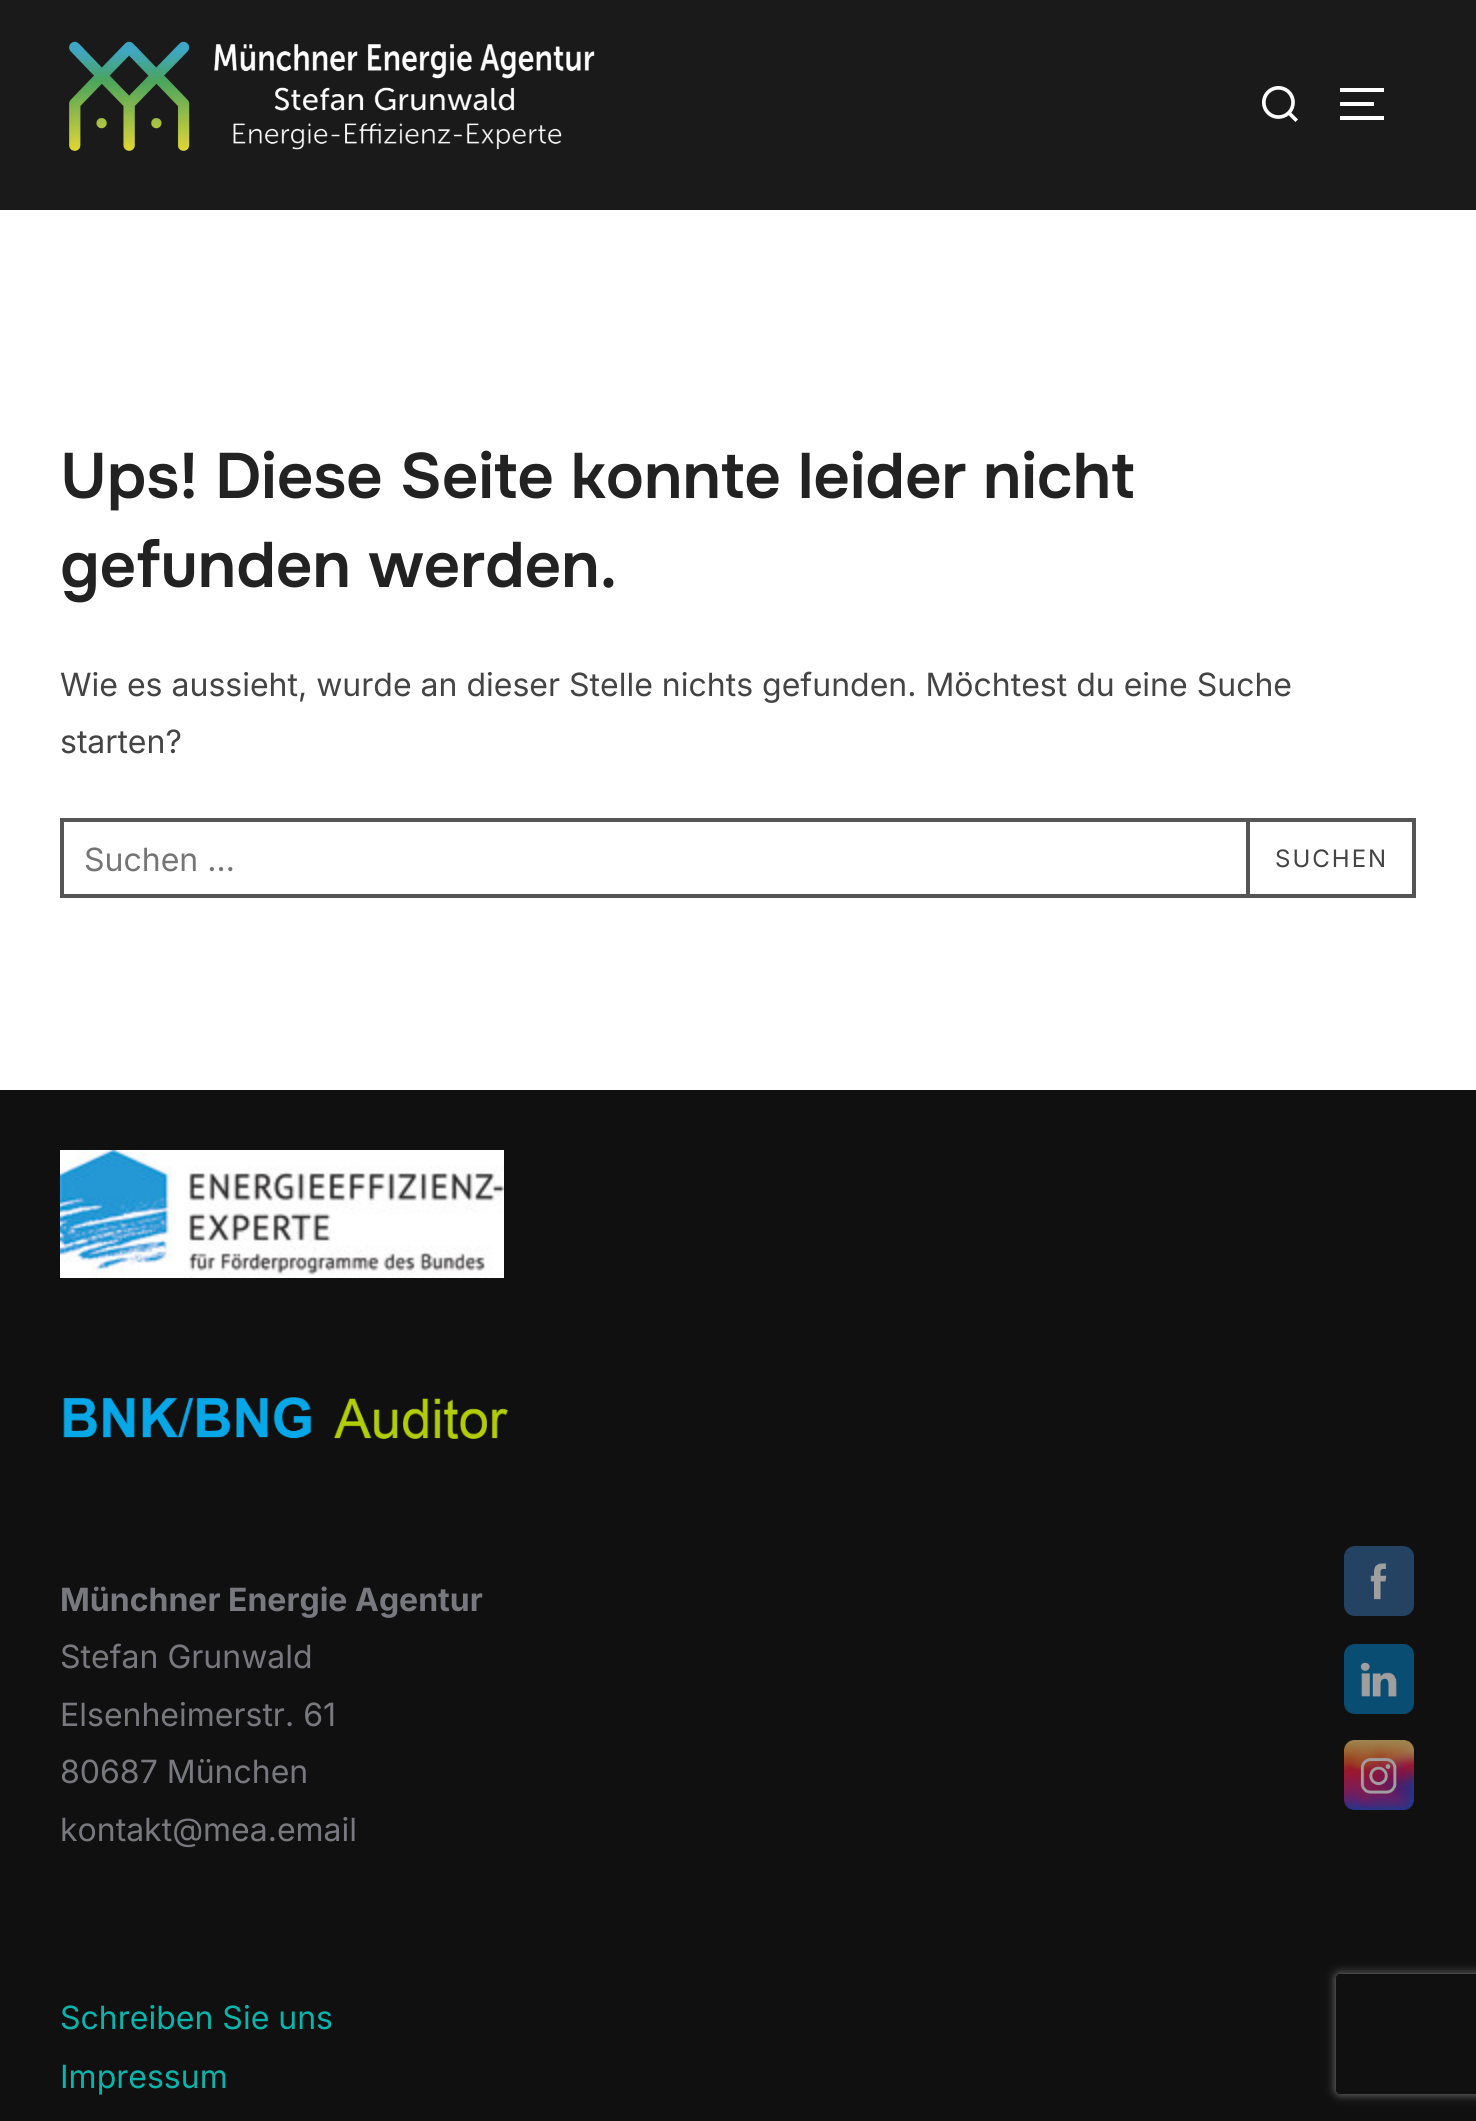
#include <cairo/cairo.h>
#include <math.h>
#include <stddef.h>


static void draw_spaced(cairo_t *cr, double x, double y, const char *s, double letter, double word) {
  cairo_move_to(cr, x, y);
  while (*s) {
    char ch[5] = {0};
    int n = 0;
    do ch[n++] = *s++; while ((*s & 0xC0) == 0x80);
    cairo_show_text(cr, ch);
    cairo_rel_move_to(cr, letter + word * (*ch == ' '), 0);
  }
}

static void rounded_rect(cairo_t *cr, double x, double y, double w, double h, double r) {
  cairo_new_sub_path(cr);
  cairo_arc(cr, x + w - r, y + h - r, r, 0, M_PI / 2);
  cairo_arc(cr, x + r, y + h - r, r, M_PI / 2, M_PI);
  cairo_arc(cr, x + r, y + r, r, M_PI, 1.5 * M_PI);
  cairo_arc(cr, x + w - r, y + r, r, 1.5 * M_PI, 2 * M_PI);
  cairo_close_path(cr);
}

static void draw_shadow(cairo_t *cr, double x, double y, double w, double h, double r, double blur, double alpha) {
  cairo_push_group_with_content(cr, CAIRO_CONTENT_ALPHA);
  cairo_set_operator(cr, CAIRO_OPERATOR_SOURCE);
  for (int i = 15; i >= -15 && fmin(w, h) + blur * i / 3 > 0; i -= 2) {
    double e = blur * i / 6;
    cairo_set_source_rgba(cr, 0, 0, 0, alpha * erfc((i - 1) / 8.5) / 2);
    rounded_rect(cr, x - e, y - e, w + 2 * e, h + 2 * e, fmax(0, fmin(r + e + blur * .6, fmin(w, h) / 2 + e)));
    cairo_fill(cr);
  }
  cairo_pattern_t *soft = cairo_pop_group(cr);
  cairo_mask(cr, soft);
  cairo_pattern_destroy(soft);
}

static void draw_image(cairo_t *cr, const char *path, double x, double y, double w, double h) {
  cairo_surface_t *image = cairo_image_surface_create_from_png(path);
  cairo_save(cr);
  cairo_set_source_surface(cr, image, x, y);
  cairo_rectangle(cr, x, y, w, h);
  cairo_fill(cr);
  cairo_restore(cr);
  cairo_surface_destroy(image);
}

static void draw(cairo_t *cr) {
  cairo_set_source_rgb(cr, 1, 1, 1);
  cairo_paint(cr);
  cairo_set_source_rgb(cr, 26 / 255.0, 26 / 255.0, 26 / 255.0);
  cairo_rectangle(cr, 0, 0, 1476, 210);
  cairo_fill(cr);
  draw_image(cr, "images/1.png", 69, 41, 526, 110);
  draw_image(cr, "images/2.png", 1262, 86, 36, 36);
  cairo_set_source_rgb(cr, 1, 1, 1);
  cairo_rectangle(cr, 1340, 88, 44, 4);
  cairo_fill(cr);
  cairo_rectangle(cr, 1340, 102, 34, 4);
  cairo_fill(cr);
  cairo_rectangle(cr, 1340, 116, 44, 4);
  cairo_fill(cr);
  cairo_rectangle(cr, 62, 820, 1352, 76);
  cairo_set_source_rgb(cr, 86 / 255.0, 85 / 255.0, 85 / 255.0);
  cairo_set_line_width(cr, 4);
  cairo_stroke(cr);
  cairo_rectangle(cr, 1248, 820, 166, 76);
  cairo_stroke(cr);
  cairo_set_source_rgb(cr, 16 / 255.0, 16 / 255.0, 16 / 255.0);
  cairo_rectangle(cr, 0, 1090, 1476, 1031);
  cairo_fill(cr);
  draw_image(cr, "images/3.png", 60, 1150, 444, 128);
  draw_image(cr, "images/4.png", 63, 1397, 445, 42);
  draw_image(cr, "images/5.png", 1344, 1546, 70, 70);
  draw_image(cr, "images/6.png", 1344, 1644, 70, 70);
  draw_image(cr, "images/7.png", 1344, 1740, 70, 70);
  cairo_save(cr);
  cairo_set_fill_rule(cr, CAIRO_FILL_RULE_EVEN_ODD);
  cairo_new_path(cr);
  cairo_move_to(cr, 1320, 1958);
  cairo_line_to(cr, 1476, 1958);
  cairo_line_to(cr, 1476, 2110);
  cairo_line_to(cr, 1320, 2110);
  cairo_close_path(cr);
  cairo_move_to(cr, 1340, 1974);
  cairo_line_to(cr, 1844, 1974);
  cairo_curve_to(cr, 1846, 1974, 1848, 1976, 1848, 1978);
  cairo_line_to(cr, 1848, 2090);
  cairo_curve_to(cr, 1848, 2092, 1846, 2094, 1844, 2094);
  cairo_line_to(cr, 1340, 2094);
  cairo_curve_to(cr, 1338, 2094, 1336, 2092, 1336, 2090);
  cairo_line_to(cr, 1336, 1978);
  cairo_curve_to(cr, 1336, 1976, 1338, 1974, 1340, 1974);
  cairo_close_path(cr);
  cairo_clip(cr);
  cairo_set_source_rgb(cr, 128 / 255.0, 128 / 255.0, 128 / 255.0);
  draw_shadow(cr, 1336, 1974, 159, 120, 4, 5, 1);
  cairo_restore(cr);
  cairo_select_font_face(cr, "Onest SemiBold", CAIRO_FONT_SLANT_NORMAL, CAIRO_FONT_WEIGHT_NORMAL);
  cairo_set_font_size(cr, 64);
  cairo_set_source_rgb(cr, 34 / 255.0, 34 / 255.0, 34 / 255.0);
  draw_spaced(cr, 60, 498, "Ups! Diese Seite konnte leider nicht", 0, -1);
  cairo_move_to(cr, 60, 587);
  cairo_show_text(cr, "gefunden werden.");
  cairo_select_font_face(cr, "Inter", CAIRO_FONT_SLANT_NORMAL, CAIRO_FONT_WEIGHT_NORMAL);
  cairo_set_font_size(cr, 32);
  cairo_set_source_rgb(cr, 68 / 255.0, 68 / 255.0, 68 / 255.0);
  cairo_move_to(cr, 60, 696);
  cairo_show_text(cr, "Wie es aussieht, wurde an dieser Stelle nichts gefunden. Möchtest du eine Suche");
  cairo_move_to(cr, 60, 753);
  cairo_show_text(cr, "starten?");
  cairo_set_source_rgb(cr, 117 / 255.0, 117 / 255.0, 117 / 255.0);
  cairo_move_to(cr, 84, 871);
  cairo_show_text(cr, "Suchen …");
  cairo_set_font_size(cr, 24);
  cairo_set_source_rgb(cr, 68 / 255.0, 68 / 255.0, 68 / 255.0);
  draw_spaced(cr, 1275, 867, "SUCHEN", 2, 0);
  cairo_select_font_face(cr, "Inter", CAIRO_FONT_SLANT_NORMAL, CAIRO_FONT_WEIGHT_BOLD);
  cairo_set_font_size(cr, 32);
  cairo_set_source_rgb(cr, 120 / 255.0, 120 / 255.0, 127 / 255.0);
  cairo_move_to(cr, 60, 1611);
  cairo_show_text(cr, "Münchner Energie Agentur");
  cairo_select_font_face(cr, "Inter", CAIRO_FONT_SLANT_NORMAL, CAIRO_FONT_WEIGHT_NORMAL);
  cairo_move_to(cr, 60, 1668);
  cairo_show_text(cr, "Stefan Grunwald");
  cairo_move_to(cr, 60, 1726);
  cairo_show_text(cr, "Elsenheimerstr. 61");
  cairo_move_to(cr, 60, 1783);
  cairo_show_text(cr, "80687 München");
  cairo_move_to(cr, 60, 1841);
  cairo_show_text(cr, "kontakt@mea.email");
  cairo_set_source_rgb(cr, 11 / 255.0, 180 / 255.0, 170 / 255.0);
  cairo_move_to(cr, 60, 2029);
  cairo_show_text(cr, "Schreiben Sie uns");
  cairo_move_to(cr, 60, 2088);
  cairo_show_text(cr, "Impressum");
}

int main(void) {
  cairo_surface_t *surface = cairo_image_surface_create(CAIRO_FORMAT_RGB24, 1476, 2121);
  cairo_t *cr = cairo_create(surface);
  cairo_font_options_t *options = cairo_font_options_create();
  cairo_font_options_set_hint_metrics(options, CAIRO_HINT_METRICS_OFF);
  cairo_font_options_set_hint_style(options, CAIRO_HINT_STYLE_NONE);
  cairo_set_font_options(cr, options);
  cairo_set_miter_limit(cr, 4);
  draw(cr);
  cairo_surface_write_to_png(surface, "out.png");
  cairo_font_options_destroy(options);
  cairo_destroy(cr);
  cairo_surface_destroy(surface);
  return 0;
}
